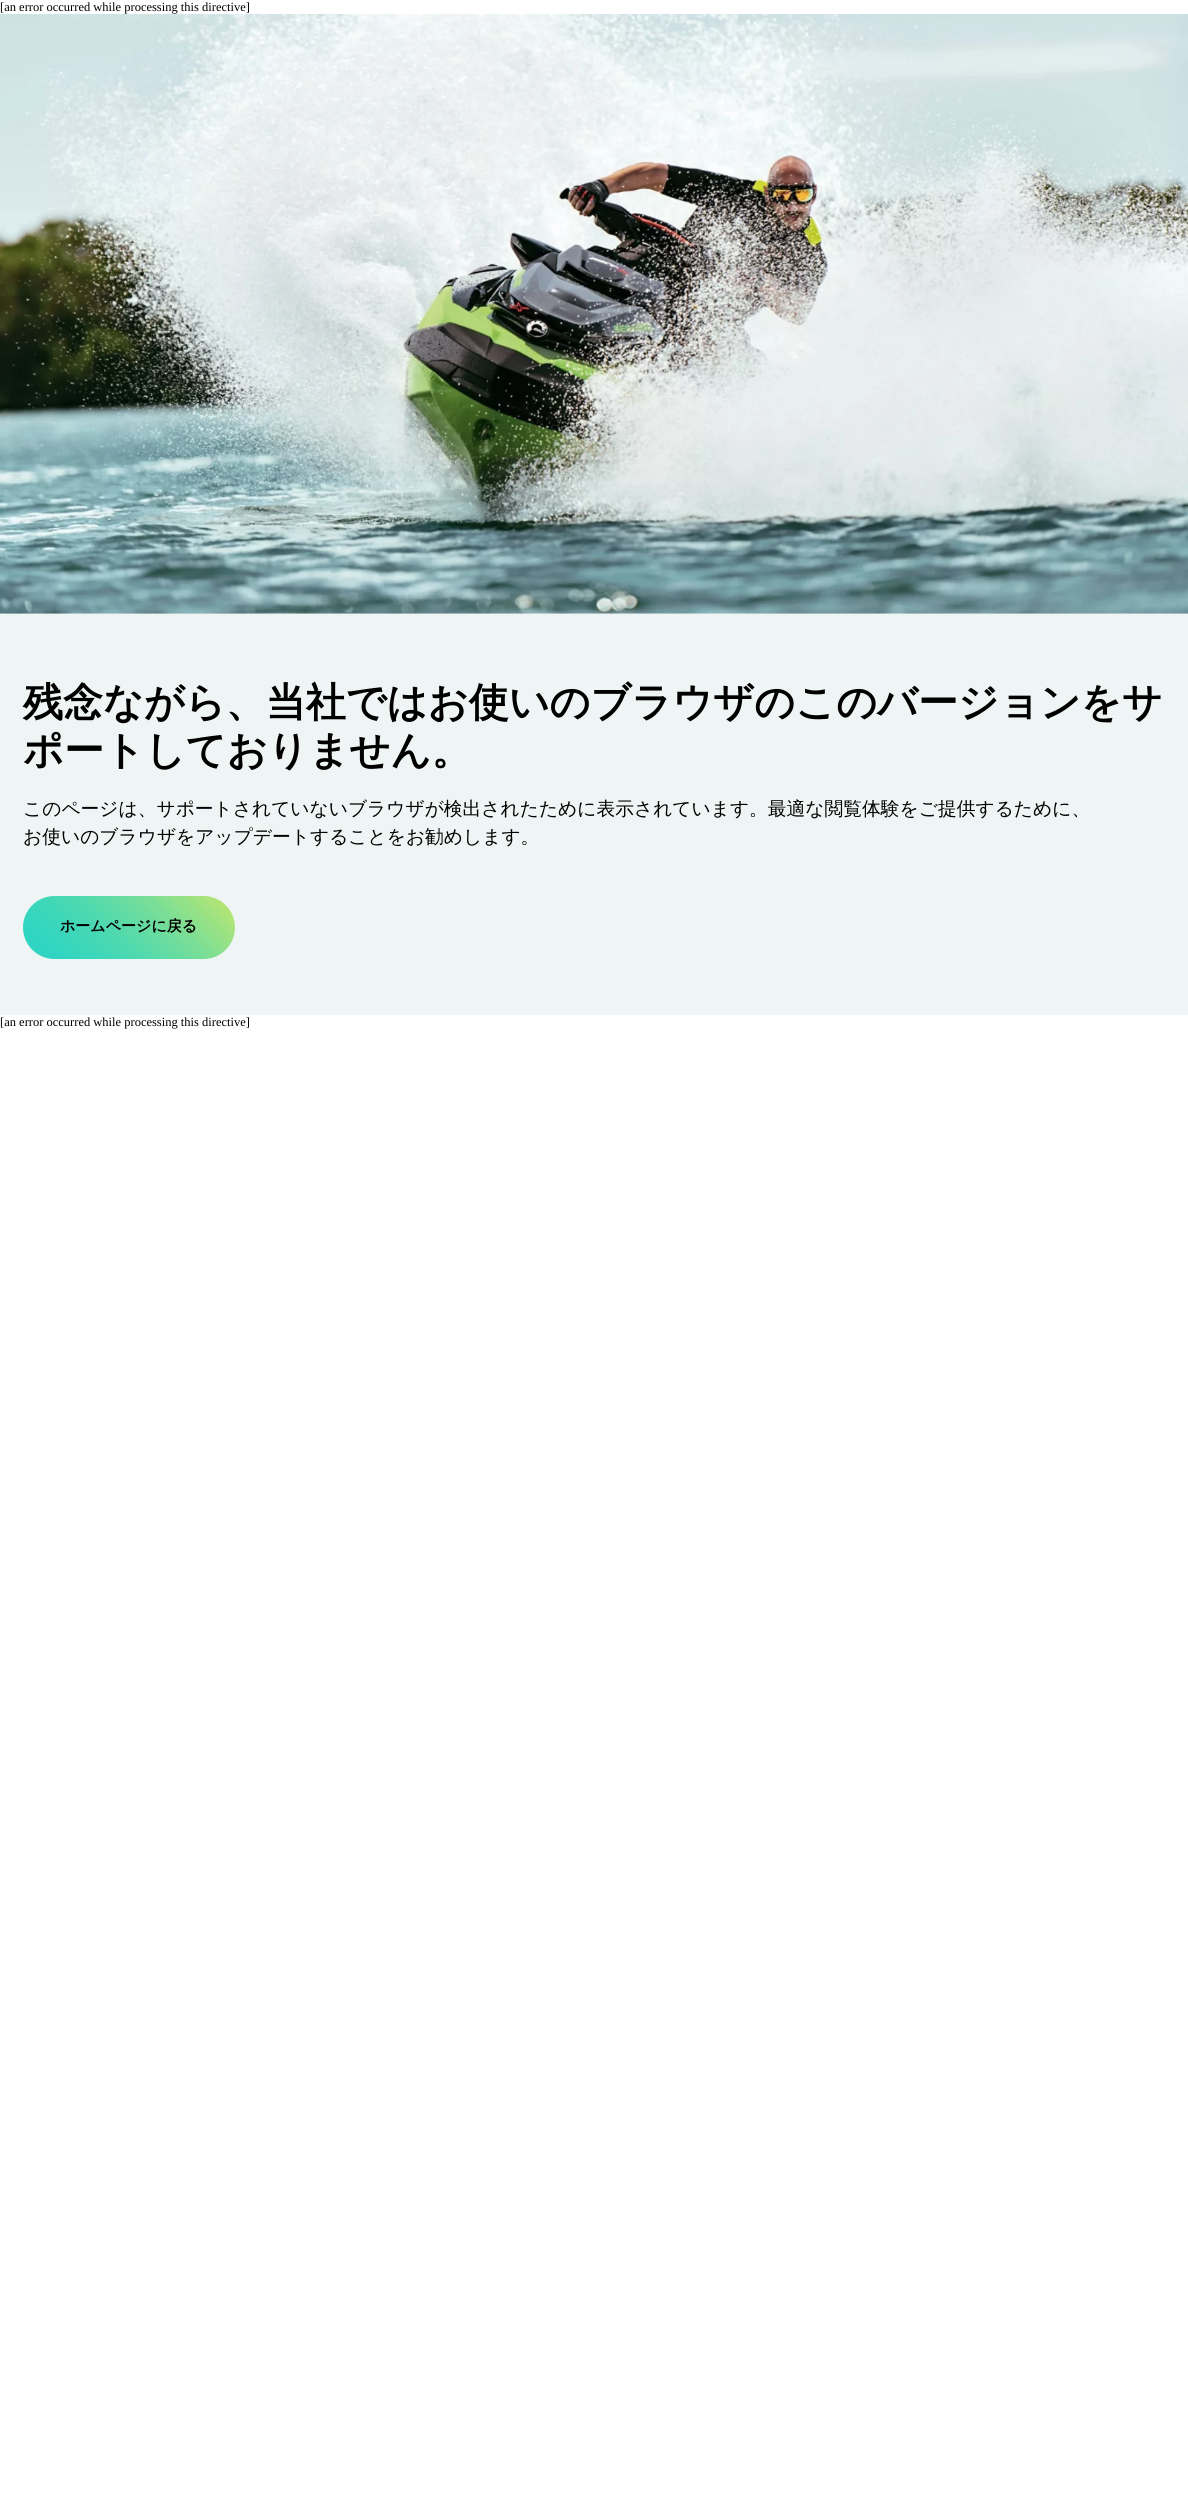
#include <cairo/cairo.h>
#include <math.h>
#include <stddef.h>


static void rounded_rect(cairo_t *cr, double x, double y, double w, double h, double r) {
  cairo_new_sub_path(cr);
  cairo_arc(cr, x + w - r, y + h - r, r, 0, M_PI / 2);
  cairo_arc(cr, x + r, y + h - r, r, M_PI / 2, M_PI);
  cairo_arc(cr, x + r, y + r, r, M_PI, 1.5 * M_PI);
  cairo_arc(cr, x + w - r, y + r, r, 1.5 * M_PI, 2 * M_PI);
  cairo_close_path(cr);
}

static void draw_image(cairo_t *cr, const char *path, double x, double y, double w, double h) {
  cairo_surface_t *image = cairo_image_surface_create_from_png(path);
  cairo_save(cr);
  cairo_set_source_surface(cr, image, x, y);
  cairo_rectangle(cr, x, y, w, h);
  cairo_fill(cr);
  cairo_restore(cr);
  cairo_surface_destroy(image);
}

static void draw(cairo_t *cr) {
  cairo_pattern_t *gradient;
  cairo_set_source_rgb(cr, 1, 1, 1);
  cairo_paint(cr);
  cairo_set_source_rgb(cr, 239 / 255.0, 245 / 255.0, 244 / 255.0);
  cairo_rectangle(cr, 0, 613, 1188, 402);
  cairo_fill(cr);
  draw_image(cr, "images/1.png", 0, 14, 1188, 600);
  gradient = cairo_pattern_create_linear(60, 996, 198, 859);
  cairo_pattern_add_color_stop_rgba(gradient, 0, 44 / 255.0, 213 / 255.0, 196 / 255.0, 1);
  cairo_pattern_add_color_stop_rgba(gradient, 0.14, 49 / 255.0, 213 / 255.0, 193 / 255.0, 1);
  cairo_pattern_add_color_stop_rgba(gradient, 0.3, 63 / 255.0, 215 / 255.0, 184 / 255.0, 1);
  cairo_pattern_add_color_stop_rgba(gradient, 0.48, 87 / 255.0, 218 / 255.0, 170 / 255.0, 1);
  cairo_pattern_add_color_stop_rgba(gradient, 0.67, 121 / 255.0, 222 / 255.0, 151 / 255.0, 1);
  cairo_pattern_add_color_stop_rgba(gradient, 0.87, 164 / 255.0, 227 / 255.0, 126 / 255.0, 1);
  cairo_pattern_add_color_stop_rgba(gradient, 1, 197 / 255.0, 232 / 255.0, 108 / 255.0, 1);
  cairo_set_source(cr, gradient);
  cairo_pattern_destroy(gradient);
  rounded_rect(cr, 23, 896, 212, 63, 31.5);
  cairo_fill(cr);
  cairo_select_font_face(cr, "Liberation Serif", CAIRO_FONT_SLANT_NORMAL, CAIRO_FONT_WEIGHT_NORMAL);
  cairo_set_font_size(cr, 12.5);
  cairo_set_source_rgb(cr, 0, 0, 0);
  cairo_move_to(cr, 0, 11);
  cairo_show_text(cr, "[an error occurred while processing this directive]");
  cairo_select_font_face(cr, "WenQuanYi Zen Hei", CAIRO_FONT_SLANT_NORMAL, CAIRO_FONT_WEIGHT_BOLD);
  cairo_set_font_size(cr, 40);
  cairo_move_to(cr, 23, 716);
  cairo_show_text(cr, "残念ながら、当社ではお使いのブラウザのこのバージョンをサ");
  cairo_move_to(cr, 23, 764);
  cairo_show_text(cr, "ポートしておりません。");
  cairo_select_font_face(cr, "WenQuanYi Zen Hei Medium", CAIRO_FONT_SLANT_NORMAL, CAIRO_FONT_WEIGHT_NORMAL);
  cairo_set_font_size(cr, 18.75);
  cairo_move_to(cr, 23, 815);
  cairo_show_text(cr, "このページは、サポートされていないブラウザが検出されたために表示されています。最適な閲覧体験をご提供するために、");
  cairo_move_to(cr, 23, 843);
  cairo_show_text(cr, "お使いのブラウザをアップデートすることをお勧めします。");
  cairo_select_font_face(cr, "WenQuanYi Zen Hei", CAIRO_FONT_SLANT_NORMAL, CAIRO_FONT_WEIGHT_BOLD);
  cairo_set_font_size(cr, 15);
  cairo_move_to(cr, 60, 931);
  cairo_show_text(cr, "ホームページに戻る");
  cairo_select_font_face(cr, "Liberation Serif", CAIRO_FONT_SLANT_NORMAL, CAIRO_FONT_WEIGHT_NORMAL);
  cairo_set_font_size(cr, 12.5);
  cairo_move_to(cr, 0, 1026);
  cairo_show_text(cr, "[an error occurred while processing this directive]");
}

int main(void) {
  cairo_surface_t *surface = cairo_image_surface_create(CAIRO_FORMAT_RGB24, 1188, 2512);
  cairo_t *cr = cairo_create(surface);
  cairo_font_options_t *options = cairo_font_options_create();
  cairo_font_options_set_hint_metrics(options, CAIRO_HINT_METRICS_OFF);
  cairo_font_options_set_hint_style(options, CAIRO_HINT_STYLE_NONE);
  cairo_set_font_options(cr, options);
  cairo_set_miter_limit(cr, 4);
  draw(cr);
  cairo_surface_write_to_png(surface, "out.png");
  cairo_font_options_destroy(options);
  cairo_destroy(cr);
  cairo_surface_destroy(surface);
  return 0;
}
